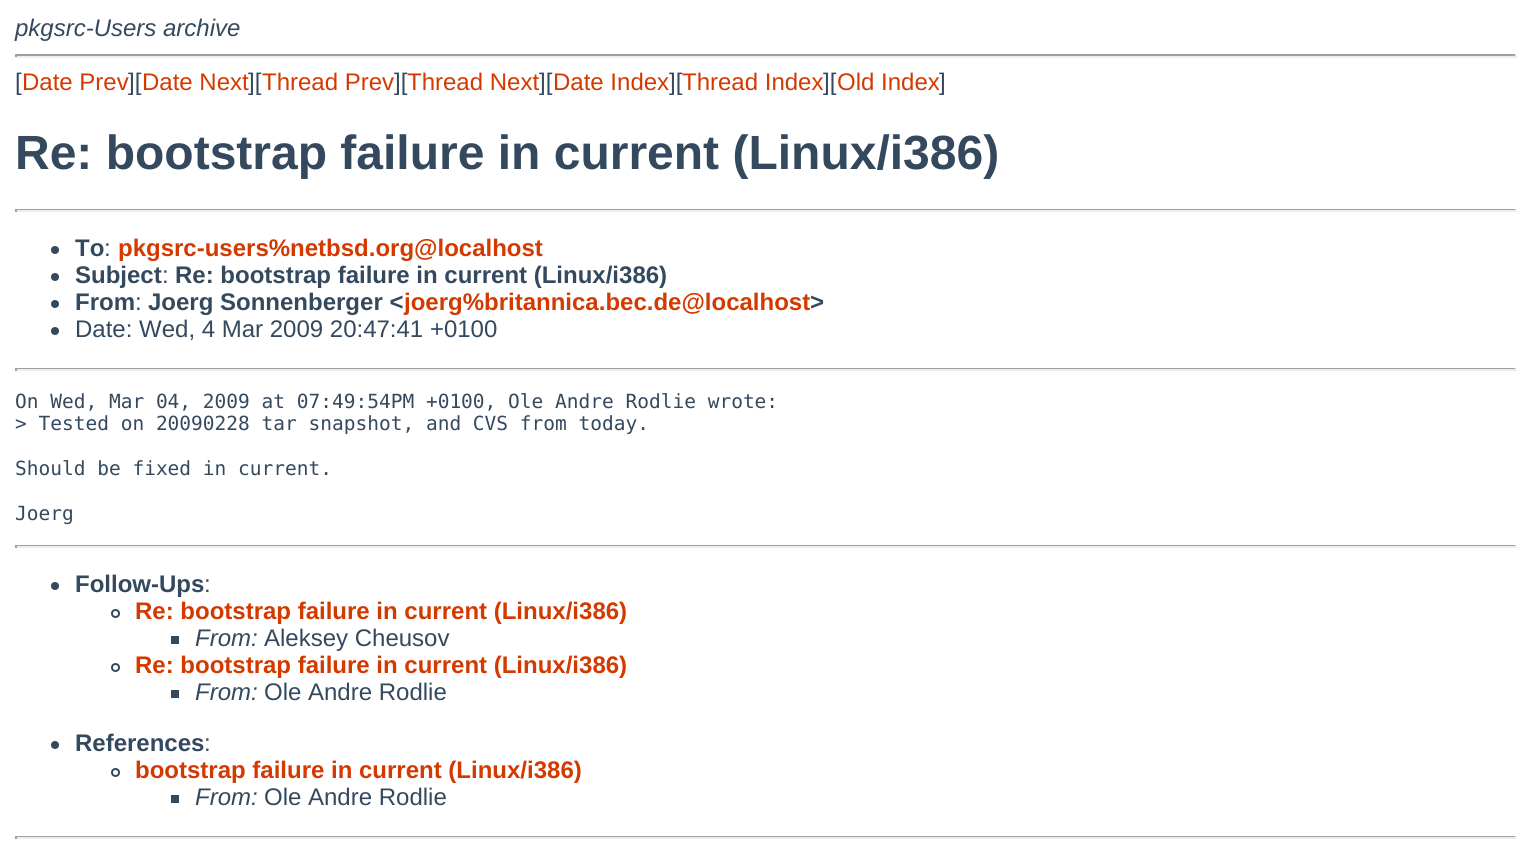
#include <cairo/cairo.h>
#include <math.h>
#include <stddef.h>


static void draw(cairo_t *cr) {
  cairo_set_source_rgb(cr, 1, 1, 1);
  cairo_paint(cr);
  cairo_set_source_rgb(cr, 159 / 255.0, 159 / 255.0, 159 / 255.0);
  cairo_rectangle(cr, 15, 54, 1502, 2);
  cairo_fill(cr);
  cairo_set_source_rgb(cr, 238 / 255.0, 238 / 255.0, 238 / 255.0);
  cairo_rectangle(cr, 1515, 54, 2, 3);
  cairo_fill(cr);
  cairo_rectangle(cr, 15, 56, 1502, 2);
  cairo_fill(cr);
  cairo_set_source_rgb(cr, 159 / 255.0, 159 / 255.0, 159 / 255.0);
  cairo_rectangle(cr, 15, 54, 2, 3);
  cairo_fill(cr);
  cairo_rectangle(cr, 15, 209, 1502, 1);
  cairo_fill(cr);
  cairo_set_source_rgb(cr, 238 / 255.0, 238 / 255.0, 238 / 255.0);
  cairo_rectangle(cr, 1515, 209, 2, 3);
  cairo_fill(cr);
  cairo_rectangle(cr, 15, 210, 1502, 2);
  cairo_fill(cr);
  cairo_set_source_rgb(cr, 159 / 255.0, 159 / 255.0, 159 / 255.0);
  cairo_rectangle(cr, 15, 209, 2, 3);
  cairo_fill(cr);
  cairo_set_source_rgb(cr, 52 / 255.0, 73 / 255.0, 94 / 255.0);
  cairo_arc(cr, 55, 250, 4, 0, 2 * M_PI);
  cairo_fill(cr);
  cairo_arc(cr, 55, 277, 4, 0, 2 * M_PI);
  cairo_fill(cr);
  cairo_arc(cr, 55, 304, 4, 0, 2 * M_PI);
  cairo_fill(cr);
  cairo_arc(cr, 55, 331, 4, 0, 2 * M_PI);
  cairo_fill(cr);
  cairo_set_source_rgb(cr, 159 / 255.0, 159 / 255.0, 159 / 255.0);
  cairo_rectangle(cr, 15, 368, 1502, 1);
  cairo_fill(cr);
  cairo_set_source_rgb(cr, 238 / 255.0, 238 / 255.0, 238 / 255.0);
  cairo_rectangle(cr, 1515, 368, 2, 3);
  cairo_fill(cr);
  cairo_rectangle(cr, 15, 369, 1502, 2);
  cairo_fill(cr);
  cairo_set_source_rgb(cr, 159 / 255.0, 159 / 255.0, 159 / 255.0);
  cairo_rectangle(cr, 15, 368, 2, 3);
  cairo_fill(cr);
  cairo_rectangle(cr, 15, 545, 1502, 1);
  cairo_fill(cr);
  cairo_set_source_rgb(cr, 238 / 255.0, 238 / 255.0, 238 / 255.0);
  cairo_rectangle(cr, 1515, 545, 2, 3);
  cairo_fill(cr);
  cairo_rectangle(cr, 15, 546, 1502, 2);
  cairo_fill(cr);
  cairo_set_source_rgb(cr, 159 / 255.0, 159 / 255.0, 159 / 255.0);
  cairo_rectangle(cr, 15, 545, 2, 3);
  cairo_fill(cr);
  cairo_set_source_rgb(cr, 52 / 255.0, 73 / 255.0, 94 / 255.0);
  cairo_arc(cr, 55, 586, 4, 0, 2 * M_PI);
  cairo_fill(cr);
  cairo_arc(cr, 115.5, 613.5, 3.5, 0, 2 * M_PI);
  cairo_stroke(cr);
  cairo_rectangle(cr, 171, 636, 8, 8);
  cairo_fill(cr);
  cairo_arc(cr, 115.5, 667.5, 3.5, 0, 2 * M_PI);
  cairo_stroke(cr);
  cairo_rectangle(cr, 171, 690, 8, 8);
  cairo_fill(cr);
  cairo_arc(cr, 55, 745, 4, 0, 2 * M_PI);
  cairo_fill(cr);
  cairo_arc(cr, 115.5, 772.5, 3.5, 0, 2 * M_PI);
  cairo_stroke(cr);
  cairo_rectangle(cr, 171, 795, 8, 8);
  cairo_fill(cr);
  cairo_set_source_rgb(cr, 159 / 255.0, 159 / 255.0, 159 / 255.0);
  cairo_rectangle(cr, 15, 836, 1502, 1);
  cairo_fill(cr);
  cairo_set_source_rgb(cr, 238 / 255.0, 238 / 255.0, 238 / 255.0);
  cairo_rectangle(cr, 1515, 836, 2, 3);
  cairo_fill(cr);
  cairo_rectangle(cr, 15, 837, 1502, 2);
  cairo_fill(cr);
  cairo_set_source_rgb(cr, 159 / 255.0, 159 / 255.0, 159 / 255.0);
  cairo_rectangle(cr, 15, 836, 2, 3);
  cairo_fill(cr);
  cairo_select_font_face(cr, "Liberation Sans", CAIRO_FONT_SLANT_ITALIC, CAIRO_FONT_WEIGHT_NORMAL);
  cairo_set_font_size(cr, 24);
  cairo_set_source_rgb(cr, 52 / 255.0, 73 / 255.0, 94 / 255.0);
  cairo_move_to(cr, 15, 36);
  cairo_show_text(cr, "pkgsrc-Users archive");
  cairo_select_font_face(cr, "Liberation Sans", CAIRO_FONT_SLANT_NORMAL, CAIRO_FONT_WEIGHT_NORMAL);
  cairo_move_to(cr, 15, 90);
  cairo_show_text(cr, "[");
  cairo_set_source_rgb(cr, 212 / 255.0, 57 / 255.0, 0);
  cairo_move_to(cr, 22, 90);
  cairo_show_text(cr, "Date Prev");
  cairo_set_source_rgb(cr, 52 / 255.0, 73 / 255.0, 94 / 255.0);
  cairo_move_to(cr, 128, 90);
  cairo_show_text(cr, "][");
  cairo_set_source_rgb(cr, 212 / 255.0, 57 / 255.0, 0);
  cairo_move_to(cr, 142, 90);
  cairo_show_text(cr, "Date Next");
  cairo_set_source_rgb(cr, 52 / 255.0, 73 / 255.0, 94 / 255.0);
  cairo_move_to(cr, 248, 90);
  cairo_show_text(cr, "][");
  cairo_set_source_rgb(cr, 212 / 255.0, 57 / 255.0, 0);
  cairo_move_to(cr, 262, 90);
  cairo_show_text(cr, "Thread Prev");
  cairo_set_source_rgb(cr, 52 / 255.0, 73 / 255.0, 94 / 255.0);
  cairo_move_to(cr, 394, 90);
  cairo_show_text(cr, "][");
  cairo_set_source_rgb(cr, 212 / 255.0, 57 / 255.0, 0);
  cairo_move_to(cr, 407, 90);
  cairo_show_text(cr, "Thread Next");
  cairo_set_source_rgb(cr, 52 / 255.0, 73 / 255.0, 94 / 255.0);
  cairo_move_to(cr, 539, 90);
  cairo_show_text(cr, "][");
  cairo_set_source_rgb(cr, 212 / 255.0, 57 / 255.0, 0);
  cairo_move_to(cr, 553, 90);
  cairo_show_text(cr, "Date Index");
  cairo_set_source_rgb(cr, 52 / 255.0, 73 / 255.0, 94 / 255.0);
  cairo_move_to(cr, 669, 90);
  cairo_show_text(cr, "][");
  cairo_set_source_rgb(cr, 212 / 255.0, 57 / 255.0, 0);
  cairo_move_to(cr, 682, 90);
  cairo_show_text(cr, "Thread Index");
  cairo_set_source_rgb(cr, 52 / 255.0, 73 / 255.0, 94 / 255.0);
  cairo_move_to(cr, 823, 90);
  cairo_show_text(cr, "][");
  cairo_set_source_rgb(cr, 212 / 255.0, 57 / 255.0, 0);
  cairo_move_to(cr, 837, 90);
  cairo_show_text(cr, "Old Index");
  cairo_set_source_rgb(cr, 52 / 255.0, 73 / 255.0, 94 / 255.0);
  cairo_move_to(cr, 939, 90);
  cairo_show_text(cr, "]");
  cairo_select_font_face(cr, "Liberation Sans", CAIRO_FONT_SLANT_NORMAL, CAIRO_FONT_WEIGHT_BOLD);
  cairo_set_font_size(cr, 48);
  cairo_move_to(cr, 15, 169);
  cairo_show_text(cr, "Re: bootstrap failure in current (Linux/i386)");
  cairo_set_font_size(cr, 24);
  cairo_move_to(cr, 75, 256);
  cairo_show_text(cr, "To");
  cairo_select_font_face(cr, "Liberation Sans", CAIRO_FONT_SLANT_NORMAL, CAIRO_FONT_WEIGHT_NORMAL);
  cairo_move_to(cr, 104, 256);
  cairo_show_text(cr, ":");
  cairo_select_font_face(cr, "Liberation Sans", CAIRO_FONT_SLANT_NORMAL, CAIRO_FONT_WEIGHT_BOLD);
  cairo_set_source_rgb(cr, 212 / 255.0, 57 / 255.0, 0);
  cairo_move_to(cr, 118, 256);
  cairo_show_text(cr, "pkgsrc-users%netbsd.org@localhost");
  cairo_set_source_rgb(cr, 52 / 255.0, 73 / 255.0, 94 / 255.0);
  cairo_move_to(cr, 75, 283);
  cairo_show_text(cr, "Subject");
  cairo_select_font_face(cr, "Liberation Sans", CAIRO_FONT_SLANT_NORMAL, CAIRO_FONT_WEIGHT_NORMAL);
  cairo_move_to(cr, 162, 283);
  cairo_show_text(cr, ":");
  cairo_select_font_face(cr, "Liberation Sans", CAIRO_FONT_SLANT_NORMAL, CAIRO_FONT_WEIGHT_BOLD);
  cairo_move_to(cr, 175, 283);
  cairo_show_text(cr, "Re: bootstrap failure in current (Linux/i386)");
  cairo_move_to(cr, 75, 310);
  cairo_show_text(cr, "From");
  cairo_select_font_face(cr, "Liberation Sans", CAIRO_FONT_SLANT_NORMAL, CAIRO_FONT_WEIGHT_NORMAL);
  cairo_move_to(cr, 135, 310);
  cairo_show_text(cr, ":");
  cairo_select_font_face(cr, "Liberation Sans", CAIRO_FONT_SLANT_NORMAL, CAIRO_FONT_WEIGHT_BOLD);
  cairo_move_to(cr, 148, 310);
  cairo_show_text(cr, "Joerg Sonnenberger <");
  cairo_set_source_rgb(cr, 212 / 255.0, 57 / 255.0, 0);
  cairo_move_to(cr, 404, 310);
  cairo_show_text(cr, "joerg%britannica.bec.de@localhost");
  cairo_set_source_rgb(cr, 52 / 255.0, 73 / 255.0, 94 / 255.0);
  cairo_move_to(cr, 810, 310);
  cairo_show_text(cr, ">");
  cairo_select_font_face(cr, "Liberation Sans", CAIRO_FONT_SLANT_NORMAL, CAIRO_FONT_WEIGHT_NORMAL);
  cairo_move_to(cr, 75, 337);
  cairo_show_text(cr, "Date: Wed, 4 Mar 2009 20:47:41 +0100");
  cairo_select_font_face(cr, "DejaVu Sans Mono", CAIRO_FONT_SLANT_NORMAL, CAIRO_FONT_WEIGHT_NORMAL);
  cairo_set_font_size(cr, 19.5);
  cairo_move_to(cr, 15, 408);
  cairo_show_text(cr, "On Wed, Mar 04, 2009 at 07:49:54PM +0100, Ole Andre Rodlie wrote:");
  cairo_move_to(cr, 15, 430);
  cairo_show_text(cr, "> Tested on 20090228 tar snapshot, and CVS from today.");
  cairo_move_to(cr, 15, 475);
  cairo_show_text(cr, "Should be fixed in current.");
  cairo_move_to(cr, 15, 520);
  cairo_show_text(cr, "Joerg");
  cairo_select_font_face(cr, "Liberation Sans", CAIRO_FONT_SLANT_NORMAL, CAIRO_FONT_WEIGHT_BOLD);
  cairo_set_font_size(cr, 24);
  cairo_move_to(cr, 75, 592);
  cairo_show_text(cr, "Follow-Ups");
  cairo_select_font_face(cr, "Liberation Sans", CAIRO_FONT_SLANT_NORMAL, CAIRO_FONT_WEIGHT_NORMAL);
  cairo_move_to(cr, 204, 592);
  cairo_show_text(cr, ":");
  cairo_select_font_face(cr, "Liberation Sans", CAIRO_FONT_SLANT_NORMAL, CAIRO_FONT_WEIGHT_BOLD);
  cairo_set_source_rgb(cr, 212 / 255.0, 57 / 255.0, 0);
  cairo_move_to(cr, 135, 619);
  cairo_show_text(cr, "Re: bootstrap failure in current (Linux/i386)");
  cairo_select_font_face(cr, "Liberation Sans", CAIRO_FONT_SLANT_ITALIC, CAIRO_FONT_WEIGHT_NORMAL);
  cairo_set_source_rgb(cr, 52 / 255.0, 73 / 255.0, 94 / 255.0);
  cairo_move_to(cr, 195, 646);
  cairo_show_text(cr, "From:");
  cairo_select_font_face(cr, "Liberation Sans", CAIRO_FONT_SLANT_NORMAL, CAIRO_FONT_WEIGHT_NORMAL);
  cairo_move_to(cr, 264, 646);
  cairo_show_text(cr, "Aleksey Cheusov");
  cairo_select_font_face(cr, "Liberation Sans", CAIRO_FONT_SLANT_NORMAL, CAIRO_FONT_WEIGHT_BOLD);
  cairo_set_source_rgb(cr, 212 / 255.0, 57 / 255.0, 0);
  cairo_move_to(cr, 135, 673);
  cairo_show_text(cr, "Re: bootstrap failure in current (Linux/i386)");
  cairo_select_font_face(cr, "Liberation Sans", CAIRO_FONT_SLANT_ITALIC, CAIRO_FONT_WEIGHT_NORMAL);
  cairo_set_source_rgb(cr, 52 / 255.0, 73 / 255.0, 94 / 255.0);
  cairo_move_to(cr, 195, 700);
  cairo_show_text(cr, "From:");
  cairo_select_font_face(cr, "Liberation Sans", CAIRO_FONT_SLANT_NORMAL, CAIRO_FONT_WEIGHT_NORMAL);
  cairo_move_to(cr, 264, 700);
  cairo_show_text(cr, "Ole Andre Rodlie");
  cairo_select_font_face(cr, "Liberation Sans", CAIRO_FONT_SLANT_NORMAL, CAIRO_FONT_WEIGHT_BOLD);
  cairo_move_to(cr, 75, 751);
  cairo_show_text(cr, "References");
  cairo_select_font_face(cr, "Liberation Sans", CAIRO_FONT_SLANT_NORMAL, CAIRO_FONT_WEIGHT_NORMAL);
  cairo_move_to(cr, 204, 751);
  cairo_show_text(cr, ":");
  cairo_select_font_face(cr, "Liberation Sans", CAIRO_FONT_SLANT_NORMAL, CAIRO_FONT_WEIGHT_BOLD);
  cairo_set_source_rgb(cr, 212 / 255.0, 57 / 255.0, 0);
  cairo_move_to(cr, 135, 778);
  cairo_show_text(cr, "bootstrap failure in current (Linux/i386)");
  cairo_select_font_face(cr, "Liberation Sans", CAIRO_FONT_SLANT_ITALIC, CAIRO_FONT_WEIGHT_NORMAL);
  cairo_set_source_rgb(cr, 52 / 255.0, 73 / 255.0, 94 / 255.0);
  cairo_move_to(cr, 195, 805);
  cairo_show_text(cr, "From:");
  cairo_select_font_face(cr, "Liberation Sans", CAIRO_FONT_SLANT_NORMAL, CAIRO_FONT_WEIGHT_NORMAL);
  cairo_move_to(cr, 264, 805);
  cairo_show_text(cr, "Ole Andre Rodlie");
}

int main(void) {
  cairo_surface_t *surface = cairo_image_surface_create(CAIRO_FORMAT_RGB24, 1531, 863);
  cairo_t *cr = cairo_create(surface);
  cairo_font_options_t *options = cairo_font_options_create();
  cairo_font_options_set_hint_metrics(options, CAIRO_HINT_METRICS_OFF);
  cairo_font_options_set_hint_style(options, CAIRO_HINT_STYLE_NONE);
  cairo_set_font_options(cr, options);
  cairo_set_miter_limit(cr, 4);
  draw(cr);
  cairo_surface_write_to_png(surface, "out.png");
  cairo_font_options_destroy(options);
  cairo_destroy(cr);
  cairo_surface_destroy(surface);
  return 0;
}
